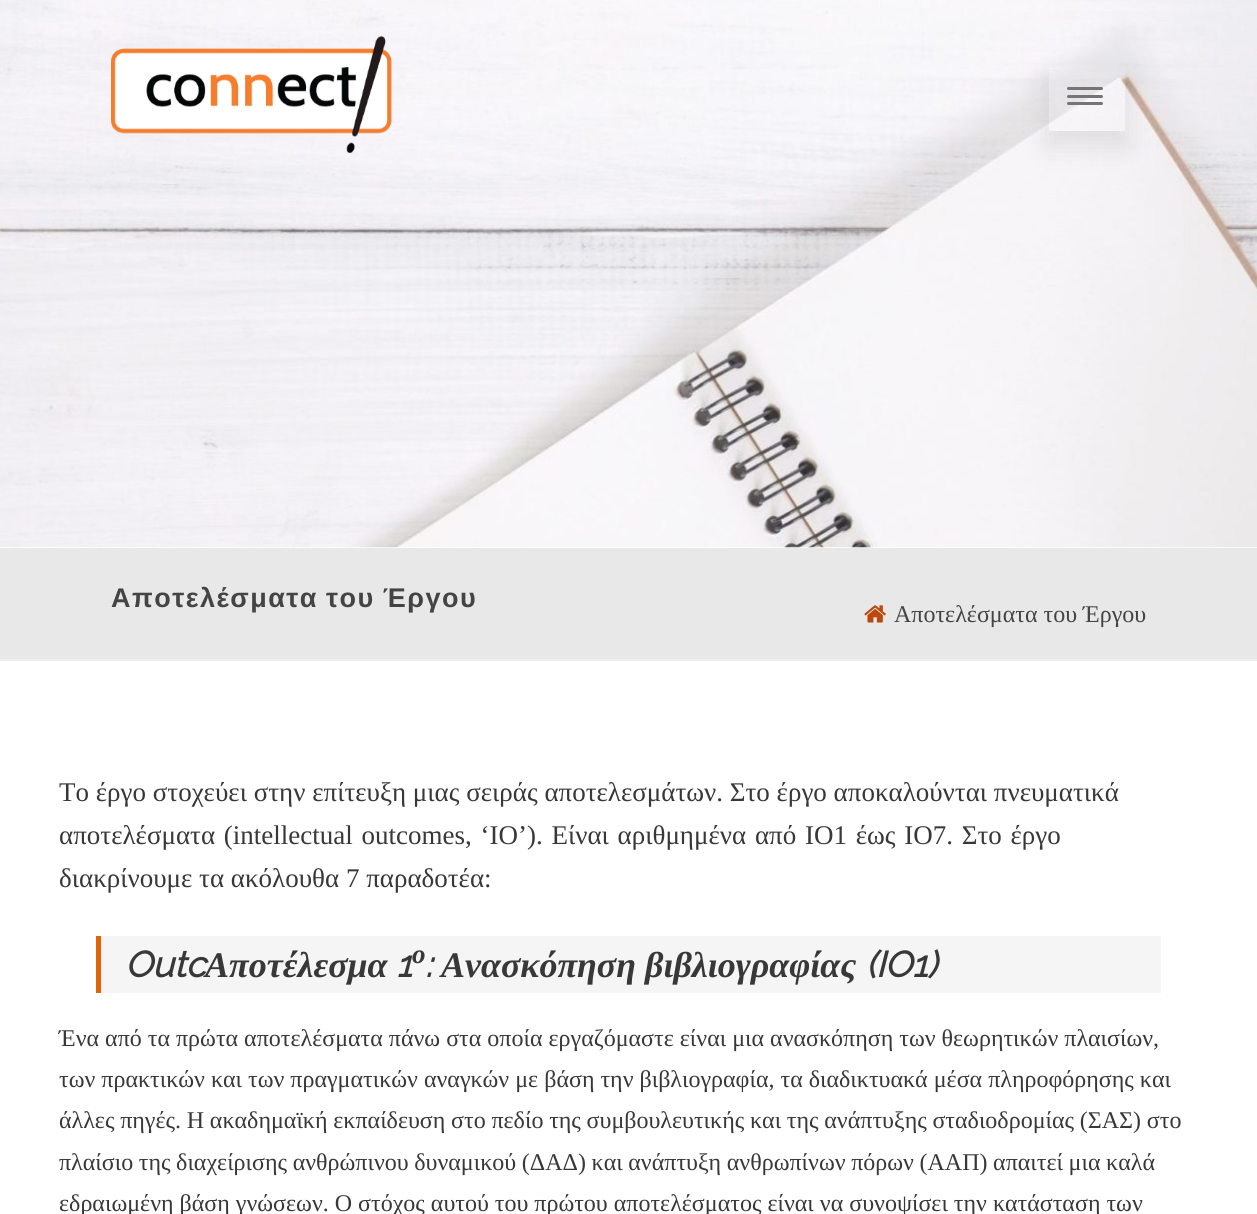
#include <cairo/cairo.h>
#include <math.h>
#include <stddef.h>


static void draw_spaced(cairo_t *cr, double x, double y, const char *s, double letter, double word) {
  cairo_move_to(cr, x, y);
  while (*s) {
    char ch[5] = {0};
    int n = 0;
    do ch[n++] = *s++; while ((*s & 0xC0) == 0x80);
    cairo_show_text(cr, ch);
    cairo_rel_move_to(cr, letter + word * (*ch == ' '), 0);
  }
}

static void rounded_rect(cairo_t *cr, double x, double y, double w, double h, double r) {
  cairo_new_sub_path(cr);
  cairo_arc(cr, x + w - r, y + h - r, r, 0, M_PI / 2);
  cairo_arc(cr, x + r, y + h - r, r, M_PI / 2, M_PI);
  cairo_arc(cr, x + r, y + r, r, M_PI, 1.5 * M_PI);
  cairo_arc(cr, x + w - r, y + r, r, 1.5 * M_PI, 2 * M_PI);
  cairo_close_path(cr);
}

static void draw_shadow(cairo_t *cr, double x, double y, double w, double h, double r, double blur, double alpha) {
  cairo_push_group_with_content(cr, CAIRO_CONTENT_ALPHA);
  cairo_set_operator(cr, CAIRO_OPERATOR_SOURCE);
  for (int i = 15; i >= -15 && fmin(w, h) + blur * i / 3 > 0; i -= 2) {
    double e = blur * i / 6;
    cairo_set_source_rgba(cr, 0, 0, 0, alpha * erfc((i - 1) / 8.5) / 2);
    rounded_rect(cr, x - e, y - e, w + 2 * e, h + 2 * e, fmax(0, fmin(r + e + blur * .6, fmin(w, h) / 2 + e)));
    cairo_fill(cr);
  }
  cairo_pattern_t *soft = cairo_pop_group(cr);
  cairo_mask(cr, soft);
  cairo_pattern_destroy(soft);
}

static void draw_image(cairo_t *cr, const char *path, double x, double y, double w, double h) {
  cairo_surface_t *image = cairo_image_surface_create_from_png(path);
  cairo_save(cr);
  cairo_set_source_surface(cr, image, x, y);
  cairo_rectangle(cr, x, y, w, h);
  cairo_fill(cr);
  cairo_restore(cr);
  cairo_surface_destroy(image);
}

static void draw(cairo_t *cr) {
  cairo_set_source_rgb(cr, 1, 1, 1);
  cairo_paint(cr);
  draw_image(cr, "images/1.png", 0, 0, 1257, 548);
  draw_image(cr, "images/2.png", 111, 36, 281, 117);
  cairo_save(cr);
  cairo_set_fill_rule(cr, CAIRO_FILL_RULE_EVEN_ODD);
  cairo_new_path(cr);
  cairo_move_to(cr, 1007, 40);
  cairo_line_to(cr, 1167, 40);
  cairo_line_to(cr, 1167, 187);
  cairo_line_to(cr, 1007, 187);
  cairo_close_path(cr);
  cairo_move_to(cr, 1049, 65);
  cairo_line_to(cr, 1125, 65);
  cairo_line_to(cr, 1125, 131);
  cairo_line_to(cr, 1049, 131);
  cairo_close_path(cr);
  cairo_clip(cr);
  cairo_set_source_rgb(cr, 64 / 255.0, 64 / 255.0, 64 / 255.0);
  draw_shadow(cr, 1047, 80, 80, 67, 0, 13, 0.13);
  cairo_restore(cr);
  cairo_set_source_rgba(cr, 231 / 255.0, 231 / 255.0, 231 / 255.0, 0.1);
  cairo_rectangle(cr, 1124, 77, 2, 10);
  cairo_fill(cr);
  cairo_set_source_rgb(cr, 117 / 255.0, 117 / 255.0, 117 / 255.0);
  rounded_rect(cr, 1067, 87, 36, 3, 1.5);
  cairo_fill(cr);
  rounded_rect(cr, 1067, 95, 36, 3, 1.5);
  cairo_fill(cr);
  rounded_rect(cr, 1067, 102, 36, 3, 1.5);
  cairo_fill(cr);
  cairo_set_source_rgb(cr, 232 / 255.0, 232 / 255.0, 232 / 255.0);
  cairo_rectangle(cr, 0, 548, 1257, 111);
  cairo_fill(cr);
  cairo_set_source_rgb(cr, 238 / 255.0, 238 / 255.0, 238 / 255.0);
  cairo_rectangle(cr, 0, 659, 1257, 2);
  cairo_fill(cr);
  draw_image(cr, "images/3.png", 864, 605, 22, 18);
  cairo_set_source_rgb(cr, 245 / 255.0, 245 / 255.0, 245 / 255.0);
  cairo_rectangle(cr, 101, 936, 1060, 57);
  cairo_fill(cr);
  cairo_set_source_rgb(cr, 224 / 255.0, 101 / 255.0, 8 / 255.0);
  cairo_rectangle(cr, 96, 936, 5, 57);
  cairo_fill(cr);
  cairo_select_font_face(cr, "Liberation Sans", CAIRO_FONT_SLANT_NORMAL, CAIRO_FONT_WEIGHT_BOLD);
  cairo_set_font_size(cr, 27);
  cairo_set_source_rgb(cr, 68 / 255.0, 68 / 255.0, 68 / 255.0);
  draw_spaced(cr, 111, 607, "Αποτελέσματα του Έργου", 1.5, -1);
  cairo_select_font_face(cr, "Liberation Serif", CAIRO_FONT_SLANT_NORMAL, CAIRO_FONT_WEIGHT_NORMAL);
  cairo_set_font_size(cr, 24);
  cairo_move_to(cr, 894, 622);
  cairo_show_text(cr, "Αποτελέσματα του Έργου");
  cairo_set_font_size(cr, 27);
  cairo_set_source_rgb(cr, 56 / 255.0, 56 / 255.0, 56 / 255.0);
  cairo_move_to(cr, 59, 801);
  cairo_show_text(cr, "Το έργο στοχεύει στην επίτευξη μιας σειράς αποτελεσμάτων. Στο έργο αποκαλούνται πνευματικά");
  draw_spaced(cr, 59, 844, "αποτελέσματα (intellectual outcomes, ‘IO’). Είναι αριθμημένα από IO1 έως IO7. Στο έργο", 0, 2);
  cairo_move_to(cr, 59, 887);
  cairo_show_text(cr, "διακρίνουμε τα ακόλουθα 7 παραδοτέα:");
  cairo_select_font_face(cr, "Raleway", CAIRO_FONT_SLANT_ITALIC, CAIRO_FONT_WEIGHT_BOLD);
  cairo_set_font_size(cr, 36);
  cairo_move_to(cr, 125, 977);
  cairo_show_text(cr, "Outc");
  cairo_select_font_face(cr, "Liberation Serif", CAIRO_FONT_SLANT_ITALIC, CAIRO_FONT_WEIGHT_BOLD);
  cairo_move_to(cr, 205, 977);
  cairo_show_text(cr, "Αποτέλεσμα");
  cairo_select_font_face(cr, "Raleway", CAIRO_FONT_SLANT_ITALIC, CAIRO_FONT_WEIGHT_BOLD);
  cairo_move_to(cr, 396, 977);
  cairo_show_text(cr, "1");
  cairo_select_font_face(cr, "Liberation Serif", CAIRO_FONT_SLANT_ITALIC, CAIRO_FONT_WEIGHT_BOLD);
  cairo_set_font_size(cr, 27);
  cairo_move_to(cr, 412, 963);
  cairo_show_text(cr, "ο");
  cairo_select_font_face(cr, "Raleway", CAIRO_FONT_SLANT_ITALIC, CAIRO_FONT_WEIGHT_BOLD);
  cairo_set_font_size(cr, 36);
  cairo_move_to(cr, 425, 977);
  cairo_show_text(cr, ":");
  cairo_select_font_face(cr, "Liberation Serif", CAIRO_FONT_SLANT_ITALIC, CAIRO_FONT_WEIGHT_BOLD);
  cairo_move_to(cr, 441, 977);
  cairo_show_text(cr, "Ανασκόπηση βιβλιογραφίας");
  cairo_select_font_face(cr, "Raleway", CAIRO_FONT_SLANT_ITALIC, CAIRO_FONT_WEIGHT_BOLD);
  cairo_move_to(cr, 866, 977);
  cairo_show_text(cr, "(IO1)");
  cairo_select_font_face(cr, "Liberation Serif", CAIRO_FONT_SLANT_NORMAL, CAIRO_FONT_WEIGHT_NORMAL);
  cairo_set_font_size(cr, 24);
  cairo_move_to(cr, 59, 1046);
  cairo_show_text(cr, "Ένα από τα πρώτα αποτελέσματα πάνω στα οποία εργαζόμαστε είναι μια ανασκόπηση των θεωρητικών πλαισίων,");
  cairo_move_to(cr, 59, 1087);
  cairo_show_text(cr, "των πρακτικών και των πραγματικών αναγκών με βάση την βιβλιογραφία, τα διαδικτυακά μέσα πληροφόρησης και");
  draw_spaced(cr, 59, 1128, "άλλες πηγές. Η ακαδημαϊκή εκπαίδευση στο πεδίο της συμβουλευτικής και της ανάπτυξης σταδιοδρομίας (ΣΑΣ) στο", 0, -0.25);
  draw_spaced(cr, 59, 1170, "πλαίσιο της διαχείρισης ανθρώπινου δυναμικού (ΔΑΔ) και ανάπτυξη ανθρωπίνων πόρων (ΑΑΠ) απαιτεί μια καλά", 0, -0.4);
  cairo_move_to(cr, 59, 1211);
  cairo_show_text(cr, "εδραιωμένη βάση γνώσεων. Ο στόχος αυτού του πρώτου αποτελέσματος είναι να συνοψίσει την κατάσταση των");
}

int main(void) {
  cairo_surface_t *surface = cairo_image_surface_create(CAIRO_FORMAT_RGB24, 1257, 1214);
  cairo_t *cr = cairo_create(surface);
  cairo_font_options_t *options = cairo_font_options_create();
  cairo_font_options_set_hint_metrics(options, CAIRO_HINT_METRICS_OFF);
  cairo_font_options_set_hint_style(options, CAIRO_HINT_STYLE_NONE);
  cairo_set_font_options(cr, options);
  cairo_set_miter_limit(cr, 4);
  draw(cr);
  cairo_surface_write_to_png(surface, "out.png");
  cairo_font_options_destroy(options);
  cairo_destroy(cr);
  cairo_surface_destroy(surface);
  return 0;
}
